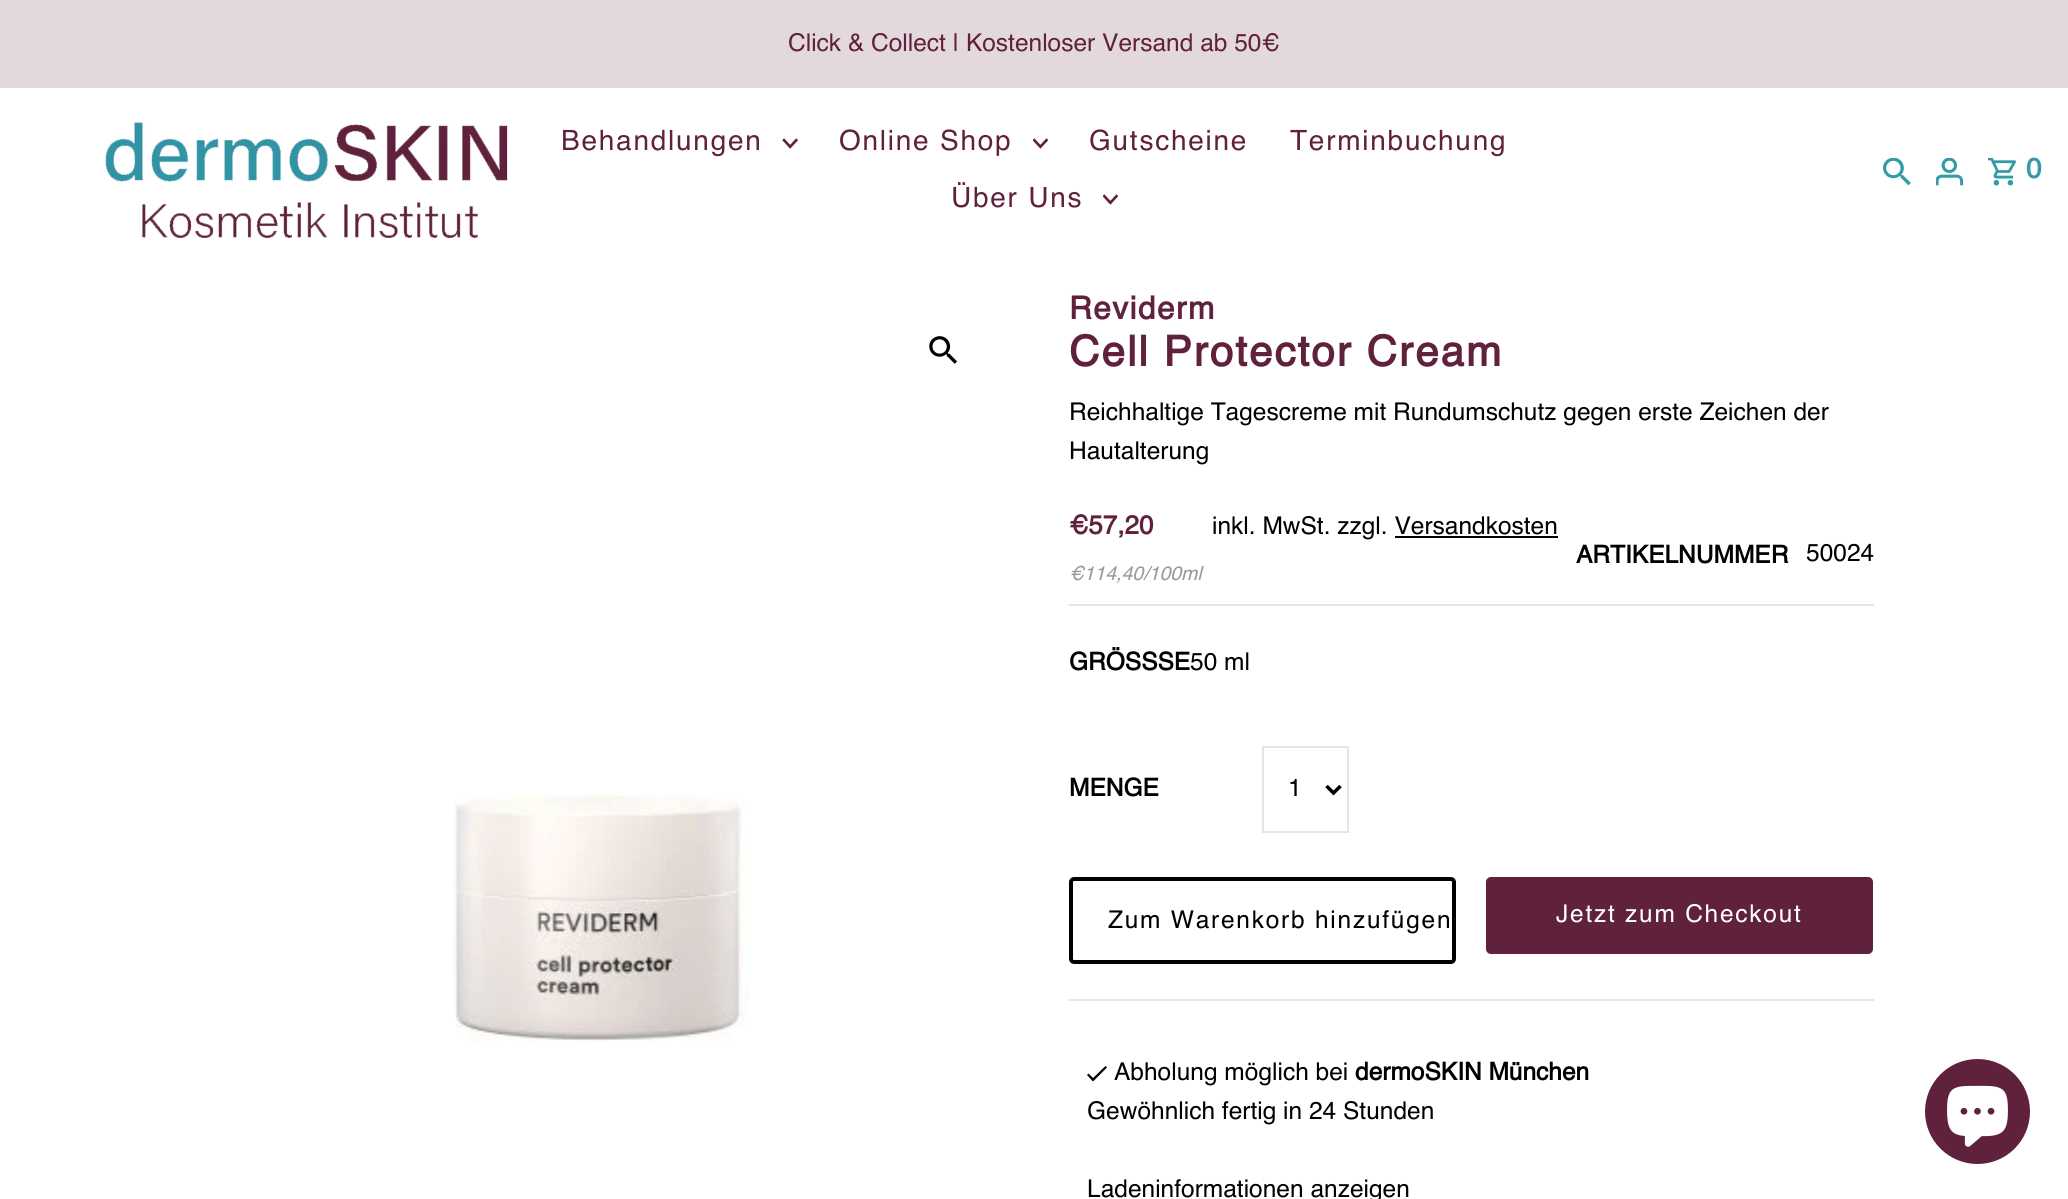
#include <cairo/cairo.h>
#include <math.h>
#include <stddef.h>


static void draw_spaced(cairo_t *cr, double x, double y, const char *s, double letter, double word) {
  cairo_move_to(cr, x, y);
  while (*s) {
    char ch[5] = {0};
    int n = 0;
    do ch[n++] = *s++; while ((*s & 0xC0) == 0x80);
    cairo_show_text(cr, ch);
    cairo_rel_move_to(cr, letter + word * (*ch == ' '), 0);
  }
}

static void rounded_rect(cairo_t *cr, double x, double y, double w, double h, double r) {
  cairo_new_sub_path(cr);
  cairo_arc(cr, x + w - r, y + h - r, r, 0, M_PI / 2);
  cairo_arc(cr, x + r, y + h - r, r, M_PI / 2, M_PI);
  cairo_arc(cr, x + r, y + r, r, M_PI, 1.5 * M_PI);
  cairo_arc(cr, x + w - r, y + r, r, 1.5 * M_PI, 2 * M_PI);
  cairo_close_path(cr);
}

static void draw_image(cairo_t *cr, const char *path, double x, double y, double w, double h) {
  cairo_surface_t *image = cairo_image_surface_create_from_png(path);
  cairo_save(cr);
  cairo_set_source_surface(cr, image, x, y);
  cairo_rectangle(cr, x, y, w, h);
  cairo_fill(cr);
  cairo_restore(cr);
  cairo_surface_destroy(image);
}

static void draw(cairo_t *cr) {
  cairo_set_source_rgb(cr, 1, 1, 1);
  cairo_paint(cr);
  cairo_set_source_rgb(cr, 227 / 255.0, 217 / 255.0, 221 / 255.0);
  cairo_rectangle(cr, 0, 0, 2068, 88);
  cairo_fill(cr);
  draw_image(cr, "images/1.png", 105, 122, 403, 116);
  draw_image(cr, "images/2.png", 782, 138, 16, 11);
  draw_image(cr, "images/3.png", 1033, 138, 15, 11);
  draw_image(cr, "images/3.png", 1103, 194, 15, 11);
  draw_image(cr, "images/4.png", 1883, 158, 28, 28);
  draw_image(cr, "images/5.png", 1936, 158, 28, 28);
  draw_image(cr, "images/6.png", 1988, 158, 28, 28);
  draw_image(cr, "images/7.png", 929, 336, 28, 28);
  draw_image(cr, "images/8.png", 453, 793, 297, 249);
  cairo_set_source_rgb(cr, 229 / 255.0, 229 / 255.0, 229 / 255.0);
  cairo_rectangle(cr, 1069, 604, 805, 2);
  cairo_fill(cr);
  cairo_set_source_rgb(cr, 0, 0, 0);
  cairo_rectangle(cr, 1395, 536, 163, 2);
  cairo_fill(cr);
  cairo_set_source_rgb(cr, 229 / 255.0, 229 / 255.0, 229 / 255.0);
  cairo_rectangle(cr, 1069, 999, 805, 2);
  cairo_fill(cr);
  cairo_rectangle(cr, 1263, 747, 85, 85);
  cairo_stroke(cr);
  cairo_new_path(cr);
  cairo_move_to(cr, 1326.5, 786);
  cairo_line_to(cr, 1333.5, 793);
  cairo_line_to(cr, 1340.5, 786);
  cairo_set_source_rgb(cr, 0, 0, 0);
  cairo_set_line_width(cr, 3.5);
  cairo_stroke(cr);
  rounded_rect(cr, 1071, 879, 383, 83, 3);
  cairo_set_line_width(cr, 4);
  cairo_stroke(cr);
  cairo_set_source_rgb(cr, 96 / 255.0, 33 / 255.0, 60 / 255.0);
  rounded_rect(cr, 1486, 877, 387, 77, 5);
  cairo_fill(cr);
  cairo_set_source_rgb(cr, 0, 0, 0);
  cairo_new_path(cr);
  cairo_move_to(cr, 1093, 1078);
  cairo_line_to(cr, 1088.5, 1073.5);
  cairo_line_to(cr, 1087, 1075);
  cairo_line_to(cr, 1093, 1081.5);
  cairo_line_to(cr, 1107, 1067.5);
  cairo_line_to(cr, 1105.5, 1066);
  cairo_close_path(cr);
  cairo_fill(cr);
  cairo_set_source_rgb(cr, 96 / 255.0, 33 / 255.0, 60 / 255.0);
  cairo_arc(cr, 1977.5, 1111.5, 52.5, 0, 2 * M_PI);
  cairo_fill(cr);
  draw_image(cr, "images/9.png", 1947, 1085, 61, 62);
  cairo_select_font_face(cr, "Helvetica", CAIRO_FONT_SLANT_NORMAL, CAIRO_FONT_WEIGHT_NORMAL);
  cairo_set_font_size(cr, 24.5);
  cairo_move_to(cr, 788, 51);
  cairo_show_text(cr, "Click & Collect | Kostenloser Versand ab 50€");
  cairo_set_font_size(cr, 28);
  draw_spaced(cr, 561, 150, "Behandlungen", 1.75, 0);
  draw_spaced(cr, 839, 150, "Online Shop", 1.75, 0);
  draw_spaced(cr, 1089, 150, "Gutscheine", 1.75, 0);
  draw_spaced(cr, 1290, 150, "Terminbuchung", 1.75, 0);
  draw_spaced(cr, 951, 207, "Über Uns", 1.75, 0);
  cairo_select_font_face(cr, "Helvetica", CAIRO_FONT_SLANT_NORMAL, CAIRO_FONT_WEIGHT_BOLD);
  cairo_set_source_rgb(cr, 51 / 255.0, 154 / 255.0, 166 / 255.0);
  draw_spaced(cr, 2026, 178, "0", 1.75, 0);
  cairo_set_font_size(cr, 31.5);
  cairo_set_source_rgb(cr, 96 / 255.0, 33 / 255.0, 60 / 255.0);
  draw_spaced(cr, 1069, 319, "Reviderm", 1.5, 0);
  cairo_set_font_size(cr, 42);
  draw_spaced(cr, 1069, 366, "Cell Protector Cream", 2.1, 0);
  cairo_select_font_face(cr, "Helvetica", CAIRO_FONT_SLANT_NORMAL, CAIRO_FONT_WEIGHT_NORMAL);
  cairo_set_font_size(cr, 24.5);
  cairo_set_source_rgb(cr, 0, 0, 0);
  cairo_move_to(cr, 1069, 420);
  cairo_show_text(cr, "Reichhaltige Tagescreme mit Rundumschutz gegen erste Zeichen der");
  cairo_move_to(cr, 1069, 459);
  cairo_show_text(cr, "Hautalterung");
  cairo_select_font_face(cr, "Helvetica", CAIRO_FONT_SLANT_NORMAL, CAIRO_FONT_WEIGHT_BOLD);
  cairo_set_font_size(cr, 26);
  cairo_set_source_rgb(cr, 96 / 255.0, 33 / 255.0, 60 / 255.0);
  cairo_move_to(cr, 1069, 534);
  cairo_show_text(cr, "€57,20");
  cairo_select_font_face(cr, "Helvetica", CAIRO_FONT_SLANT_ITALIC, CAIRO_FONT_WEIGHT_NORMAL);
  cairo_set_font_size(cr, 19.5);
  cairo_set_source_rgb(cr, 153 / 255.0, 153 / 255.0, 153 / 255.0);
  cairo_move_to(cr, 1069, 580);
  cairo_show_text(cr, "€114,40/100ml");
  cairo_select_font_face(cr, "Helvetica", CAIRO_FONT_SLANT_NORMAL, CAIRO_FONT_WEIGHT_NORMAL);
  cairo_set_font_size(cr, 24.5);
  cairo_set_source_rgb(cr, 0, 0, 0);
  cairo_move_to(cr, 1212, 534);
  cairo_show_text(cr, "inkl. MwSt. zzgl. Versandkosten");
  cairo_select_font_face(cr, "Helvetica", CAIRO_FONT_SLANT_NORMAL, CAIRO_FONT_WEIGHT_BOLD);
  cairo_move_to(cr, 1576, 563);
  cairo_show_text(cr, "ARTIKELNUMMER");
  cairo_select_font_face(cr, "Helvetica", CAIRO_FONT_SLANT_NORMAL, CAIRO_FONT_WEIGHT_NORMAL);
  cairo_move_to(cr, 1806, 561);
  cairo_show_text(cr, "50024");
  cairo_select_font_face(cr, "Helvetica", CAIRO_FONT_SLANT_NORMAL, CAIRO_FONT_WEIGHT_BOLD);
  cairo_move_to(cr, 1069, 670);
  cairo_show_text(cr, "GRÖSSSE");
  cairo_select_font_face(cr, "Helvetica", CAIRO_FONT_SLANT_NORMAL, CAIRO_FONT_WEIGHT_NORMAL);
  cairo_move_to(cr, 1190, 670);
  cairo_show_text(cr, "50 ml");
  cairo_select_font_face(cr, "Helvetica", CAIRO_FONT_SLANT_NORMAL, CAIRO_FONT_WEIGHT_BOLD);
  cairo_move_to(cr, 1069, 796);
  cairo_show_text(cr, "MENGE");
  cairo_select_font_face(cr, "Helvetica", CAIRO_FONT_SLANT_NORMAL, CAIRO_FONT_WEIGHT_NORMAL);
  cairo_move_to(cr, 1288, 796);
  cairo_show_text(cr, "1");
  draw_spaced(cr, 1108, 928, "Zum Warenkorb hinzufügen", 1.75, 0);
  cairo_set_source_rgb(cr, 1, 1, 1);
  draw_spaced(cr, 1556, 922, "Jetzt zum Checkout", 1.75, 0);
  cairo_set_source_rgb(cr, 0, 0, 0);
  cairo_move_to(cr, 1114, 1080);
  cairo_show_text(cr, "Abholung möglich bei");
  cairo_select_font_face(cr, "Helvetica", CAIRO_FONT_SLANT_NORMAL, CAIRO_FONT_WEIGHT_BOLD);
  cairo_move_to(cr, 1355, 1080);
  cairo_show_text(cr, "dermoSKIN München");
  cairo_select_font_face(cr, "Helvetica", CAIRO_FONT_SLANT_NORMAL, CAIRO_FONT_WEIGHT_NORMAL);
  cairo_move_to(cr, 1087, 1119);
  cairo_show_text(cr, "Gewöhnlich fertig in 24 Stunden");
  cairo_move_to(cr, 1087, 1197);
  cairo_show_text(cr, "Ladeninformationen anzeigen");
}

int main(void) {
  cairo_surface_t *surface = cairo_image_surface_create(CAIRO_FORMAT_RGB24, 2068, 1199);
  cairo_t *cr = cairo_create(surface);
  cairo_font_options_t *options = cairo_font_options_create();
  cairo_font_options_set_hint_metrics(options, CAIRO_HINT_METRICS_OFF);
  cairo_font_options_set_hint_style(options, CAIRO_HINT_STYLE_NONE);
  cairo_set_font_options(cr, options);
  cairo_set_miter_limit(cr, 4);
  draw(cr);
  cairo_surface_write_to_png(surface, "out.png");
  cairo_font_options_destroy(options);
  cairo_destroy(cr);
  cairo_surface_destroy(surface);
  return 0;
}
